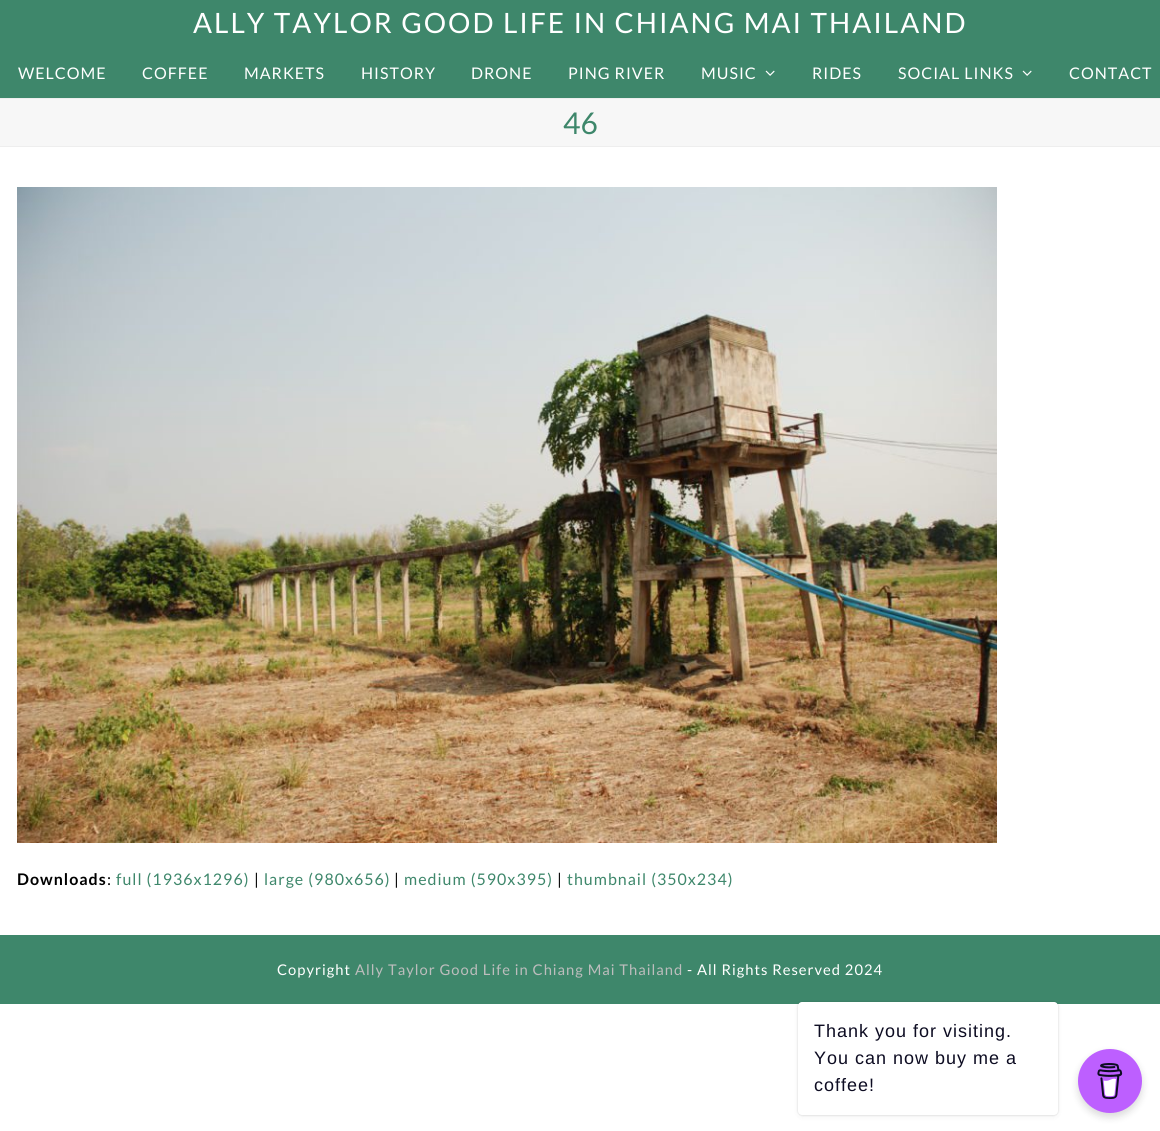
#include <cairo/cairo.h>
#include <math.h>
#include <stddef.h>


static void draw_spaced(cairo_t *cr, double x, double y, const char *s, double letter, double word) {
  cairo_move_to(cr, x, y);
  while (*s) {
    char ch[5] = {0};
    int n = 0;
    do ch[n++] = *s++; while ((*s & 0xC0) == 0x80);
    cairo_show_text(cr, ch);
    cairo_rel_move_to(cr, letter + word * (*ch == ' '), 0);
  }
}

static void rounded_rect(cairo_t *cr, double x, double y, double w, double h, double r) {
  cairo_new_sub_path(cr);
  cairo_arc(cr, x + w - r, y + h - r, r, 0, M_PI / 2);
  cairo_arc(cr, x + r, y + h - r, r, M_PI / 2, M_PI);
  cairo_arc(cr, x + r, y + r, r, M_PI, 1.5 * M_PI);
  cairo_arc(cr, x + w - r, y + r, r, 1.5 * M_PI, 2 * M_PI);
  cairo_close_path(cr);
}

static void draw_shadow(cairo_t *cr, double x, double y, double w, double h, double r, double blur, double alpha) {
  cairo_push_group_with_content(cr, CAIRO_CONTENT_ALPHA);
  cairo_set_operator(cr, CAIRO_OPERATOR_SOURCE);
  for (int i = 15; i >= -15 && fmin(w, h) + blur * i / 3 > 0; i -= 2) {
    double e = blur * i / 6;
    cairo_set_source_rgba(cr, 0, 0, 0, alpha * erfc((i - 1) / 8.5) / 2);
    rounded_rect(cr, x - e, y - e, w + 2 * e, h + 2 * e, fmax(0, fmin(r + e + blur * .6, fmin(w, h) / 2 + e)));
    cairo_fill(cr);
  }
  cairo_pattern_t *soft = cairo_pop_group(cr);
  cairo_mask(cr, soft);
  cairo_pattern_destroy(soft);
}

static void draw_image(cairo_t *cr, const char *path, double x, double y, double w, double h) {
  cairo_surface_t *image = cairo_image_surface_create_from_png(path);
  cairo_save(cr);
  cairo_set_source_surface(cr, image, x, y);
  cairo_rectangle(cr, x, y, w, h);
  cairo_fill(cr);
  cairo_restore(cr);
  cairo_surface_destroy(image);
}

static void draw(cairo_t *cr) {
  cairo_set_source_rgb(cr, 1, 1, 1);
  cairo_paint(cr);
  cairo_set_source_rgb(cr, 62 / 255.0, 135 / 255.0, 107 / 255.0);
  cairo_rectangle(cr, 0, 0, 1160, 98);
  cairo_fill(cr);
  draw_image(cr, "images/1.png", 765, 70, 10, 6);
  draw_image(cr, "images/1.png", 1022, 70, 10, 6);
  cairo_set_source_rgb(cr, 247 / 255.0, 247 / 255.0, 247 / 255.0);
  cairo_rectangle(cr, 0, 99, 1160, 47);
  cairo_fill(cr);
  cairo_set_source_rgb(cr, 238 / 255.0, 238 / 255.0, 238 / 255.0);
  cairo_rectangle(cr, 0, 98, 1160, 1);
  cairo_fill(cr);
  cairo_rectangle(cr, 0, 146, 1160, 1);
  cairo_fill(cr);
  draw_image(cr, "images/2.png", 17, 187, 980, 656);
  cairo_set_source_rgb(cr, 62 / 255.0, 135 / 255.0, 107 / 255.0);
  cairo_rectangle(cr, 0, 935, 1160, 69);
  cairo_fill(cr);
  cairo_set_source_rgb(cr, 0, 0, 0);
  draw_shadow(cr, 798, 1002, 260, 113, 4, 1, 0.15);
  draw_shadow(cr, 798, 1004, 260, 113, 4, 2.5, 0.05);
  cairo_set_source_rgb(cr, 1, 1, 1);
  rounded_rect(cr, 798, 1002, 260, 113, 4);
  cairo_fill(cr);
  cairo_set_source_rgb(cr, 0, 0, 0);
  draw_shadow(cr, 1078, 1053, 64, 64, 32, 4, 0.15);
  cairo_set_source_rgb(cr, 189 / 255.0, 95 / 255.0, 1);
  cairo_arc(cr, 1110, 1081, 32, 0, 2 * M_PI);
  cairo_fill(cr);
  draw_image(cr, "images/3.png", 1097, 1063, 26, 36);
  cairo_select_font_face(cr, "Lato", CAIRO_FONT_SLANT_NORMAL, CAIRO_FONT_WEIGHT_NORMAL);
  cairo_set_font_size(cr, 28);
  cairo_set_source_rgb(cr, 1, 1, 1);
  draw_spaced(cr, 193, 33, "ALLY TAYLOR GOOD LIFE IN CHIANG MAI THAILAND", 2, 0);
  cairo_set_font_size(cr, 16);
  draw_spaced(cr, 18, 79, "WELCOME", 1, 0);
  draw_spaced(cr, 142, 79, "COFFEE", 1, 0);
  draw_spaced(cr, 244, 79, "MARKETS", 1, 0);
  draw_spaced(cr, 361, 79, "HISTORY", 1, 0);
  draw_spaced(cr, 471, 79, "DRONE", 1, 0);
  draw_spaced(cr, 568, 79, "PING RIVER", 1, 0);
  draw_spaced(cr, 701, 79, "MUSIC", 1, 0);
  draw_spaced(cr, 812, 79, "RIDES", 1, 0);
  draw_spaced(cr, 898, 79, "SOCIAL LINKS", 1, 0);
  draw_spaced(cr, 1069, 79, "CONTACT", 1, 0);
  cairo_set_font_size(cr, 30);
  cairo_set_source_rgb(cr, 62 / 255.0, 135 / 255.0, 107 / 255.0);
  cairo_move_to(cr, 563, 134);
  cairo_show_text(cr, "46");
  cairo_select_font_face(cr, "Lato", CAIRO_FONT_SLANT_NORMAL, CAIRO_FONT_WEIGHT_BOLD);
  cairo_set_font_size(cr, 16);
  cairo_set_source_rgb(cr, 0, 0, 0);
  draw_spaced(cr, 17, 885, "Downloads", 1, 0);
  cairo_select_font_face(cr, "Lato", CAIRO_FONT_SLANT_NORMAL, CAIRO_FONT_WEIGHT_NORMAL);
  draw_spaced(cr, 107, 885, ":", 1, 0);
  cairo_set_source_rgb(cr, 62 / 255.0, 135 / 255.0, 107 / 255.0);
  draw_spaced(cr, 116, 885, "full (1936x1296)", 1, 0);
  cairo_set_source_rgb(cr, 0, 0, 0);
  draw_spaced(cr, 254, 885, "|", 1, 0);
  cairo_set_source_rgb(cr, 62 / 255.0, 135 / 255.0, 107 / 255.0);
  draw_spaced(cr, 264, 885, "large (980x656)", 1, 0);
  cairo_set_source_rgb(cr, 0, 0, 0);
  draw_spaced(cr, 394, 885, "|", 1, 0);
  cairo_set_source_rgb(cr, 62 / 255.0, 135 / 255.0, 107 / 255.0);
  draw_spaced(cr, 404, 885, "medium (590x395)", 1, 0);
  cairo_set_source_rgb(cr, 0, 0, 0);
  draw_spaced(cr, 557, 885, "|", 1, 0);
  cairo_set_source_rgb(cr, 62 / 255.0, 135 / 255.0, 107 / 255.0);
  draw_spaced(cr, 567, 885, "thumbnail (350x234)", 1, 0);
  cairo_set_font_size(cr, 14.75);
  cairo_set_source_rgb(cr, 1, 1, 1);
  draw_spaced(cr, 277, 975, "Copyright", 1, 0);
  cairo_set_source_rgb(cr, 189 / 255.0, 189 / 255.0, 189 / 255.0);
  draw_spaced(cr, 355, 975, "Ally Taylor Good Life in Chiang Mai Thailand", 1, 0);
  cairo_set_source_rgb(cr, 1, 1, 1);
  draw_spaced(cr, 687, 975, "- All Rights Reserved 2024", 1, 0);
  cairo_select_font_face(cr, "Liberation Sans", CAIRO_FONT_SLANT_NORMAL, CAIRO_FONT_WEIGHT_NORMAL);
  cairo_set_font_size(cr, 18);
  cairo_set_source_rgb(cr, 13 / 255.0, 12 / 255.0, 34 / 255.0);
  draw_spaced(cr, 814, 1037, "Thank you for visiting.", 1, 0);
  draw_spaced(cr, 814, 1064, "You can now buy me a", 1, 0);
  draw_spaced(cr, 814, 1091, "coffee!", 1, 0);
}

int main(void) {
  cairo_surface_t *surface = cairo_image_surface_create(CAIRO_FORMAT_RGB24, 1160, 1131);
  cairo_t *cr = cairo_create(surface);
  cairo_font_options_t *options = cairo_font_options_create();
  cairo_font_options_set_hint_metrics(options, CAIRO_HINT_METRICS_OFF);
  cairo_font_options_set_hint_style(options, CAIRO_HINT_STYLE_NONE);
  cairo_set_font_options(cr, options);
  cairo_set_miter_limit(cr, 4);
  draw(cr);
  cairo_surface_write_to_png(surface, "out.png");
  cairo_font_options_destroy(options);
  cairo_destroy(cr);
  cairo_surface_destroy(surface);
  return 0;
}
